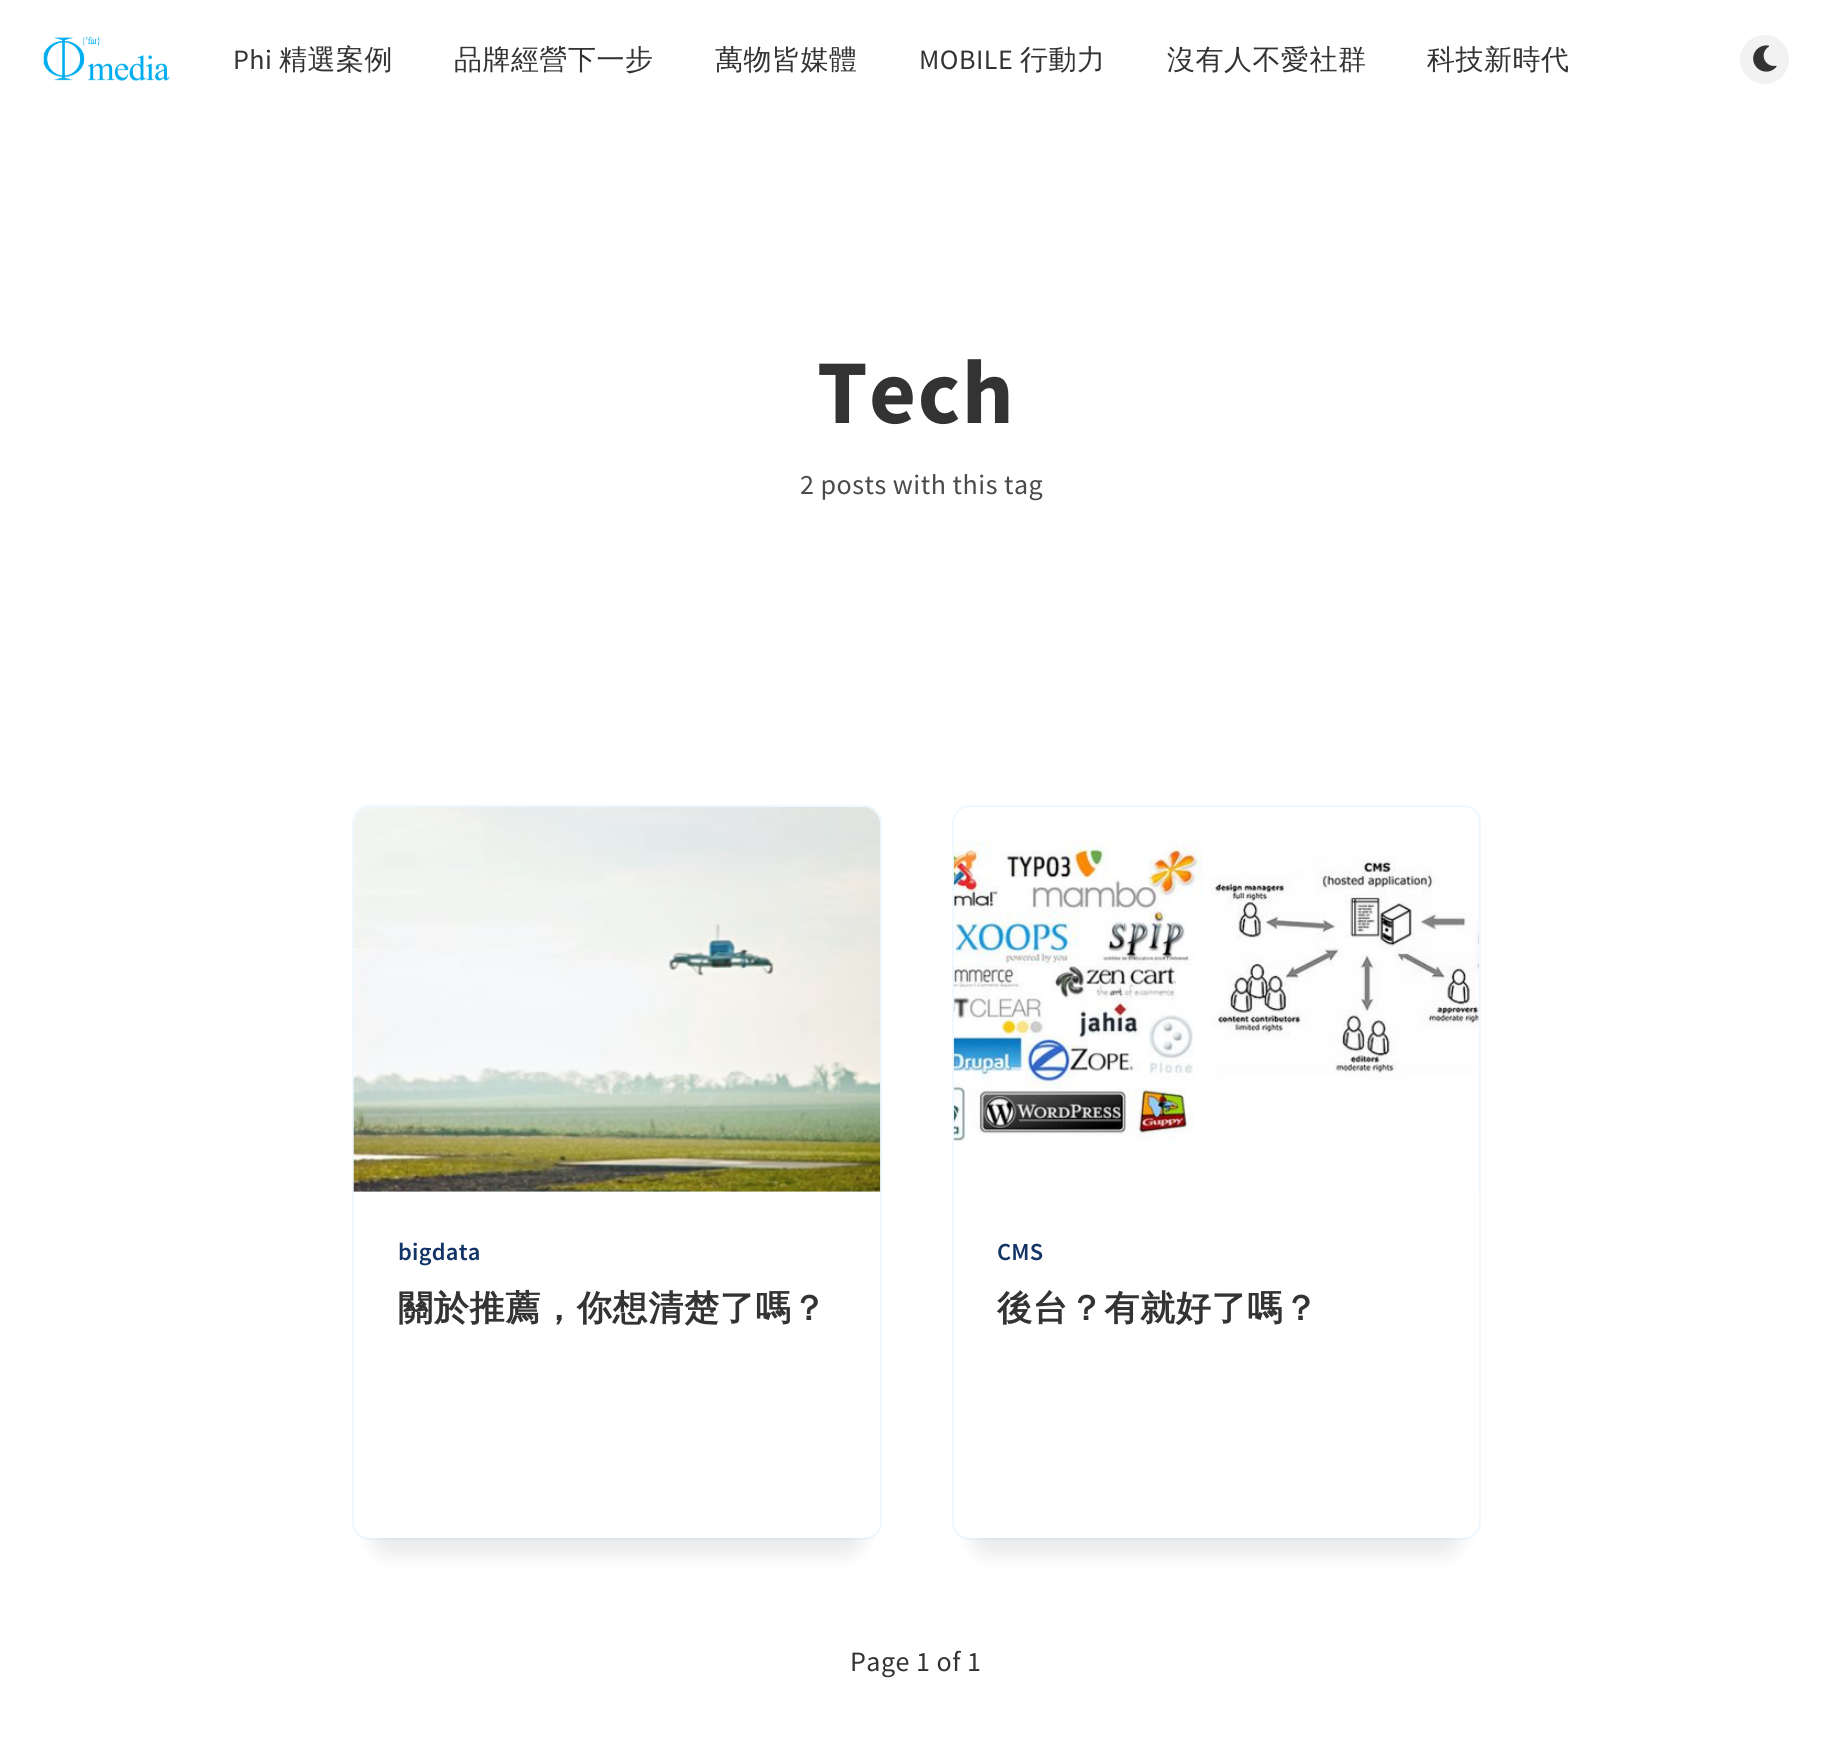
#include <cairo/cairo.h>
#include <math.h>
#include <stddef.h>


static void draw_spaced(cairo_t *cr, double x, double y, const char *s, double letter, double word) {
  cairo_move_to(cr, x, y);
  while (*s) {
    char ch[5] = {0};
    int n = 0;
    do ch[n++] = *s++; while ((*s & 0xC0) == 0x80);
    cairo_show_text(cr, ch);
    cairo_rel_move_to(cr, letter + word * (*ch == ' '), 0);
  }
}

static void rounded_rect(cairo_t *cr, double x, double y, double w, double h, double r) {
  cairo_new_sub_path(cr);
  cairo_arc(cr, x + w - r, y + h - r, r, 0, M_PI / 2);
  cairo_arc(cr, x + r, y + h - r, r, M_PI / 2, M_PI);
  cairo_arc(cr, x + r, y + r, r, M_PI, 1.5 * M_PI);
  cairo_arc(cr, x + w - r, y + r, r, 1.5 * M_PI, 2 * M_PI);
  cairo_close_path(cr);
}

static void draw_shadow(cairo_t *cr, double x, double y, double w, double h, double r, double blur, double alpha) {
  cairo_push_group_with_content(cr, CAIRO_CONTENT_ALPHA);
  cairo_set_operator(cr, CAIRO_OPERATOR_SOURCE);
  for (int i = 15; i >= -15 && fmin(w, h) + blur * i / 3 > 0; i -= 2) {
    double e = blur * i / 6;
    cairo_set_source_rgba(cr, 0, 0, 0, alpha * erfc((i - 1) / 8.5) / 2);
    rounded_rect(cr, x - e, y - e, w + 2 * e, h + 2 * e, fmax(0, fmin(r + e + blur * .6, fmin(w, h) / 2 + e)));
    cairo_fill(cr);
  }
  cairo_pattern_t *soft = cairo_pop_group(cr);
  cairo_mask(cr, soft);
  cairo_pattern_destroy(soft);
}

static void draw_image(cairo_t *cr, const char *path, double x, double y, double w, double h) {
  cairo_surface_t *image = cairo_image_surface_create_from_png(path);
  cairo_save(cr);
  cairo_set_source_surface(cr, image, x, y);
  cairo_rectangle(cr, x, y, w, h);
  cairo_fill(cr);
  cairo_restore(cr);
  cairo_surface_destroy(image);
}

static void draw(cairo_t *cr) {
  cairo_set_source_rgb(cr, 1, 1, 1);
  cairo_paint(cr);
  draw_image(cr, "images/1.png", 43, 36, 127, 45);
  cairo_set_source_rgb(cr, 242 / 255.0, 242 / 255.0, 242 / 255.0);
  cairo_arc(cr, 1764.5, 59.5, 24.5, 0, 2 * M_PI);
  cairo_fill(cr);
  draw_image(cr, "images/2.png", 1753, 45, 24, 27);
  rounded_rect(cr, 353, 806, 528, 733, 17);
  cairo_set_source_rgb(cr, 240 / 255.0, 248 / 255.0, 1);
  cairo_stroke(cr);
  cairo_set_source_rgb(cr, 0, 0, 0);
  draw_shadow(cr, 371, 842, 492, 714, 18, 9, 0.08);
  cairo_set_source_rgb(cr, 244 / 255.0, 248 / 255.0, 253 / 255.0);
  cairo_new_path(cr);
  cairo_move_to(cr, 372, 807);
  cairo_line_to(cr, 862, 807);
  cairo_curve_to(cr, 872, 807, 880, 815, 880, 825);
  cairo_line_to(cr, 880, 1192);
  cairo_line_to(cr, 354, 1192);
  cairo_line_to(cr, 354, 825);
  cairo_curve_to(cr, 354, 815, 362, 807, 372, 807);
  cairo_close_path(cr);
  cairo_fill(cr);
  draw_image(cr, "images/3.png", 353, 807, 528, 385);
  cairo_set_source_rgb(cr, 1, 1, 1);
  cairo_new_path(cr);
  cairo_move_to(cr, 354, 1192);
  cairo_line_to(cr, 880, 1192);
  cairo_line_to(cr, 880, 1520);
  cairo_curve_to(cr, 880, 1530, 872, 1538, 862, 1538);
  cairo_line_to(cr, 372, 1538);
  cairo_curve_to(cr, 362, 1538, 354, 1530, 354, 1520);
  cairo_close_path(cr);
  cairo_fill(cr);
  rounded_rect(cr, 953, 806, 527, 733, 17);
  cairo_set_source_rgb(cr, 240 / 255.0, 248 / 255.0, 1);
  cairo_stroke(cr);
  cairo_set_source_rgb(cr, 0, 0, 0);
  draw_shadow(cr, 971, 842, 490, 714, 18, 9, 0.08);
  cairo_set_source_rgb(cr, 244 / 255.0, 248 / 255.0, 253 / 255.0);
  cairo_new_path(cr);
  cairo_move_to(cr, 972, 807);
  cairo_line_to(cr, 1461, 807);
  cairo_curve_to(cr, 1471, 807, 1479, 815, 1479, 825);
  cairo_line_to(cr, 1479, 1192);
  cairo_line_to(cr, 954, 1192);
  cairo_line_to(cr, 954, 825);
  cairo_curve_to(cr, 954, 815, 962, 807, 972, 807);
  cairo_close_path(cr);
  cairo_fill(cr);
  draw_image(cr, "images/4.png", 953, 807, 526, 385);
  cairo_set_source_rgb(cr, 1, 1, 1);
  cairo_new_path(cr);
  cairo_move_to(cr, 954, 1192);
  cairo_line_to(cr, 1479, 1192);
  cairo_line_to(cr, 1479, 1520);
  cairo_curve_to(cr, 1479, 1530, 1471, 1538, 1461, 1538);
  cairo_line_to(cr, 972, 1538);
  cairo_curve_to(cr, 962, 1538, 954, 1530, 954, 1520);
  cairo_close_path(cr);
  cairo_fill(cr);
  cairo_select_font_face(cr, "Source Sans Pro", CAIRO_FONT_SLANT_NORMAL, CAIRO_FONT_WEIGHT_NORMAL);
  cairo_set_font_size(cr, 28);
  cairo_set_source_rgb(cr, 51 / 255.0, 51 / 255.0, 51 / 255.0);
  draw_spaced(cr, 233, 69, "Phi", 0.5, 0);
  cairo_select_font_face(cr, "WenQuanYi Zen Hei Medium", CAIRO_FONT_SLANT_NORMAL, CAIRO_FONT_WEIGHT_NORMAL);
  draw_spaced(cr, 279, 69, "精選案例", 0.5, 0);
  draw_spaced(cr, 454, 69, "品牌經營下一步", 0.5, 0);
  draw_spaced(cr, 715, 69, "萬物皆媒體", 0.5, 0);
  cairo_select_font_face(cr, "Source Sans Pro", CAIRO_FONT_SLANT_NORMAL, CAIRO_FONT_WEIGHT_NORMAL);
  draw_spaced(cr, 919, 69, "MOBILE", 0.5, 0);
  cairo_select_font_face(cr, "WenQuanYi Zen Hei Medium", CAIRO_FONT_SLANT_NORMAL, CAIRO_FONT_WEIGHT_NORMAL);
  draw_spaced(cr, 1020, 69, "行動力", 0.5, 0);
  draw_spaced(cr, 1167, 69, "沒有人不愛社群", 0.5, 0);
  draw_spaced(cr, 1427, 69, "科技新時代", 0.5, 0);
  cairo_select_font_face(cr, "Source Sans Pro", CAIRO_FONT_SLANT_NORMAL, CAIRO_FONT_WEIGHT_BOLD);
  cairo_set_font_size(cr, 91);
  draw_spaced(cr, 817, 423, "Tech", 1.5, 0);
  cairo_select_font_face(cr, "Source Sans Pro", CAIRO_FONT_SLANT_NORMAL, CAIRO_FONT_WEIGHT_NORMAL);
  cairo_set_font_size(cr, 28);
  cairo_set_source_rgb(cr, 74 / 255.0, 74 / 255.0, 74 / 255.0);
  draw_spaced(cr, 800, 494, "2 posts with this tag", 0.5, 0);
  cairo_select_font_face(cr, "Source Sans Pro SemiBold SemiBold", CAIRO_FONT_SLANT_NORMAL, CAIRO_FONT_WEIGHT_NORMAL);
  cairo_set_font_size(cr, 24.5);
  cairo_set_source_rgb(cr, 19 / 255.0, 52 / 255.0, 103 / 255.0);
  draw_spaced(cr, 398, 1260, "bigdata", 0.25, 0);
  cairo_select_font_face(cr, "WenQuanYi Zen Hei", CAIRO_FONT_SLANT_NORMAL, CAIRO_FONT_WEIGHT_BOLD);
  cairo_set_font_size(cr, 35);
  cairo_set_source_rgb(cr, 51 / 255.0, 51 / 255.0, 51 / 255.0);
  draw_spaced(cr, 398, 1320, "關於推薦，你想清楚了嗎？", 0.75, 0);
  cairo_select_font_face(cr, "Source Sans Pro SemiBold SemiBold", CAIRO_FONT_SLANT_NORMAL, CAIRO_FONT_WEIGHT_NORMAL);
  cairo_set_font_size(cr, 24.5);
  cairo_set_source_rgb(cr, 19 / 255.0, 52 / 255.0, 103 / 255.0);
  draw_spaced(cr, 997, 1260, "CMS", 0.25, 0);
  cairo_select_font_face(cr, "WenQuanYi Zen Hei", CAIRO_FONT_SLANT_NORMAL, CAIRO_FONT_WEIGHT_BOLD);
  cairo_set_font_size(cr, 35);
  cairo_set_source_rgb(cr, 51 / 255.0, 51 / 255.0, 51 / 255.0);
  draw_spaced(cr, 997, 1320, "後台？有就好了嗎？", 0.75, 0);
  cairo_select_font_face(cr, "Source Sans Pro", CAIRO_FONT_SLANT_NORMAL, CAIRO_FONT_WEIGHT_NORMAL);
  cairo_set_font_size(cr, 28);
  draw_spaced(cr, 850, 1671, "Page 1 of 1", 0.5, 0);
}

int main(void) {
  cairo_surface_t *surface = cairo_image_surface_create(CAIRO_FORMAT_RGB24, 1832, 1742);
  cairo_t *cr = cairo_create(surface);
  cairo_font_options_t *options = cairo_font_options_create();
  cairo_font_options_set_hint_metrics(options, CAIRO_HINT_METRICS_OFF);
  cairo_font_options_set_hint_style(options, CAIRO_HINT_STYLE_NONE);
  cairo_set_font_options(cr, options);
  cairo_set_miter_limit(cr, 4);
  draw(cr);
  cairo_surface_write_to_png(surface, "out.png");
  cairo_font_options_destroy(options);
  cairo_destroy(cr);
  cairo_surface_destroy(surface);
  return 0;
}
